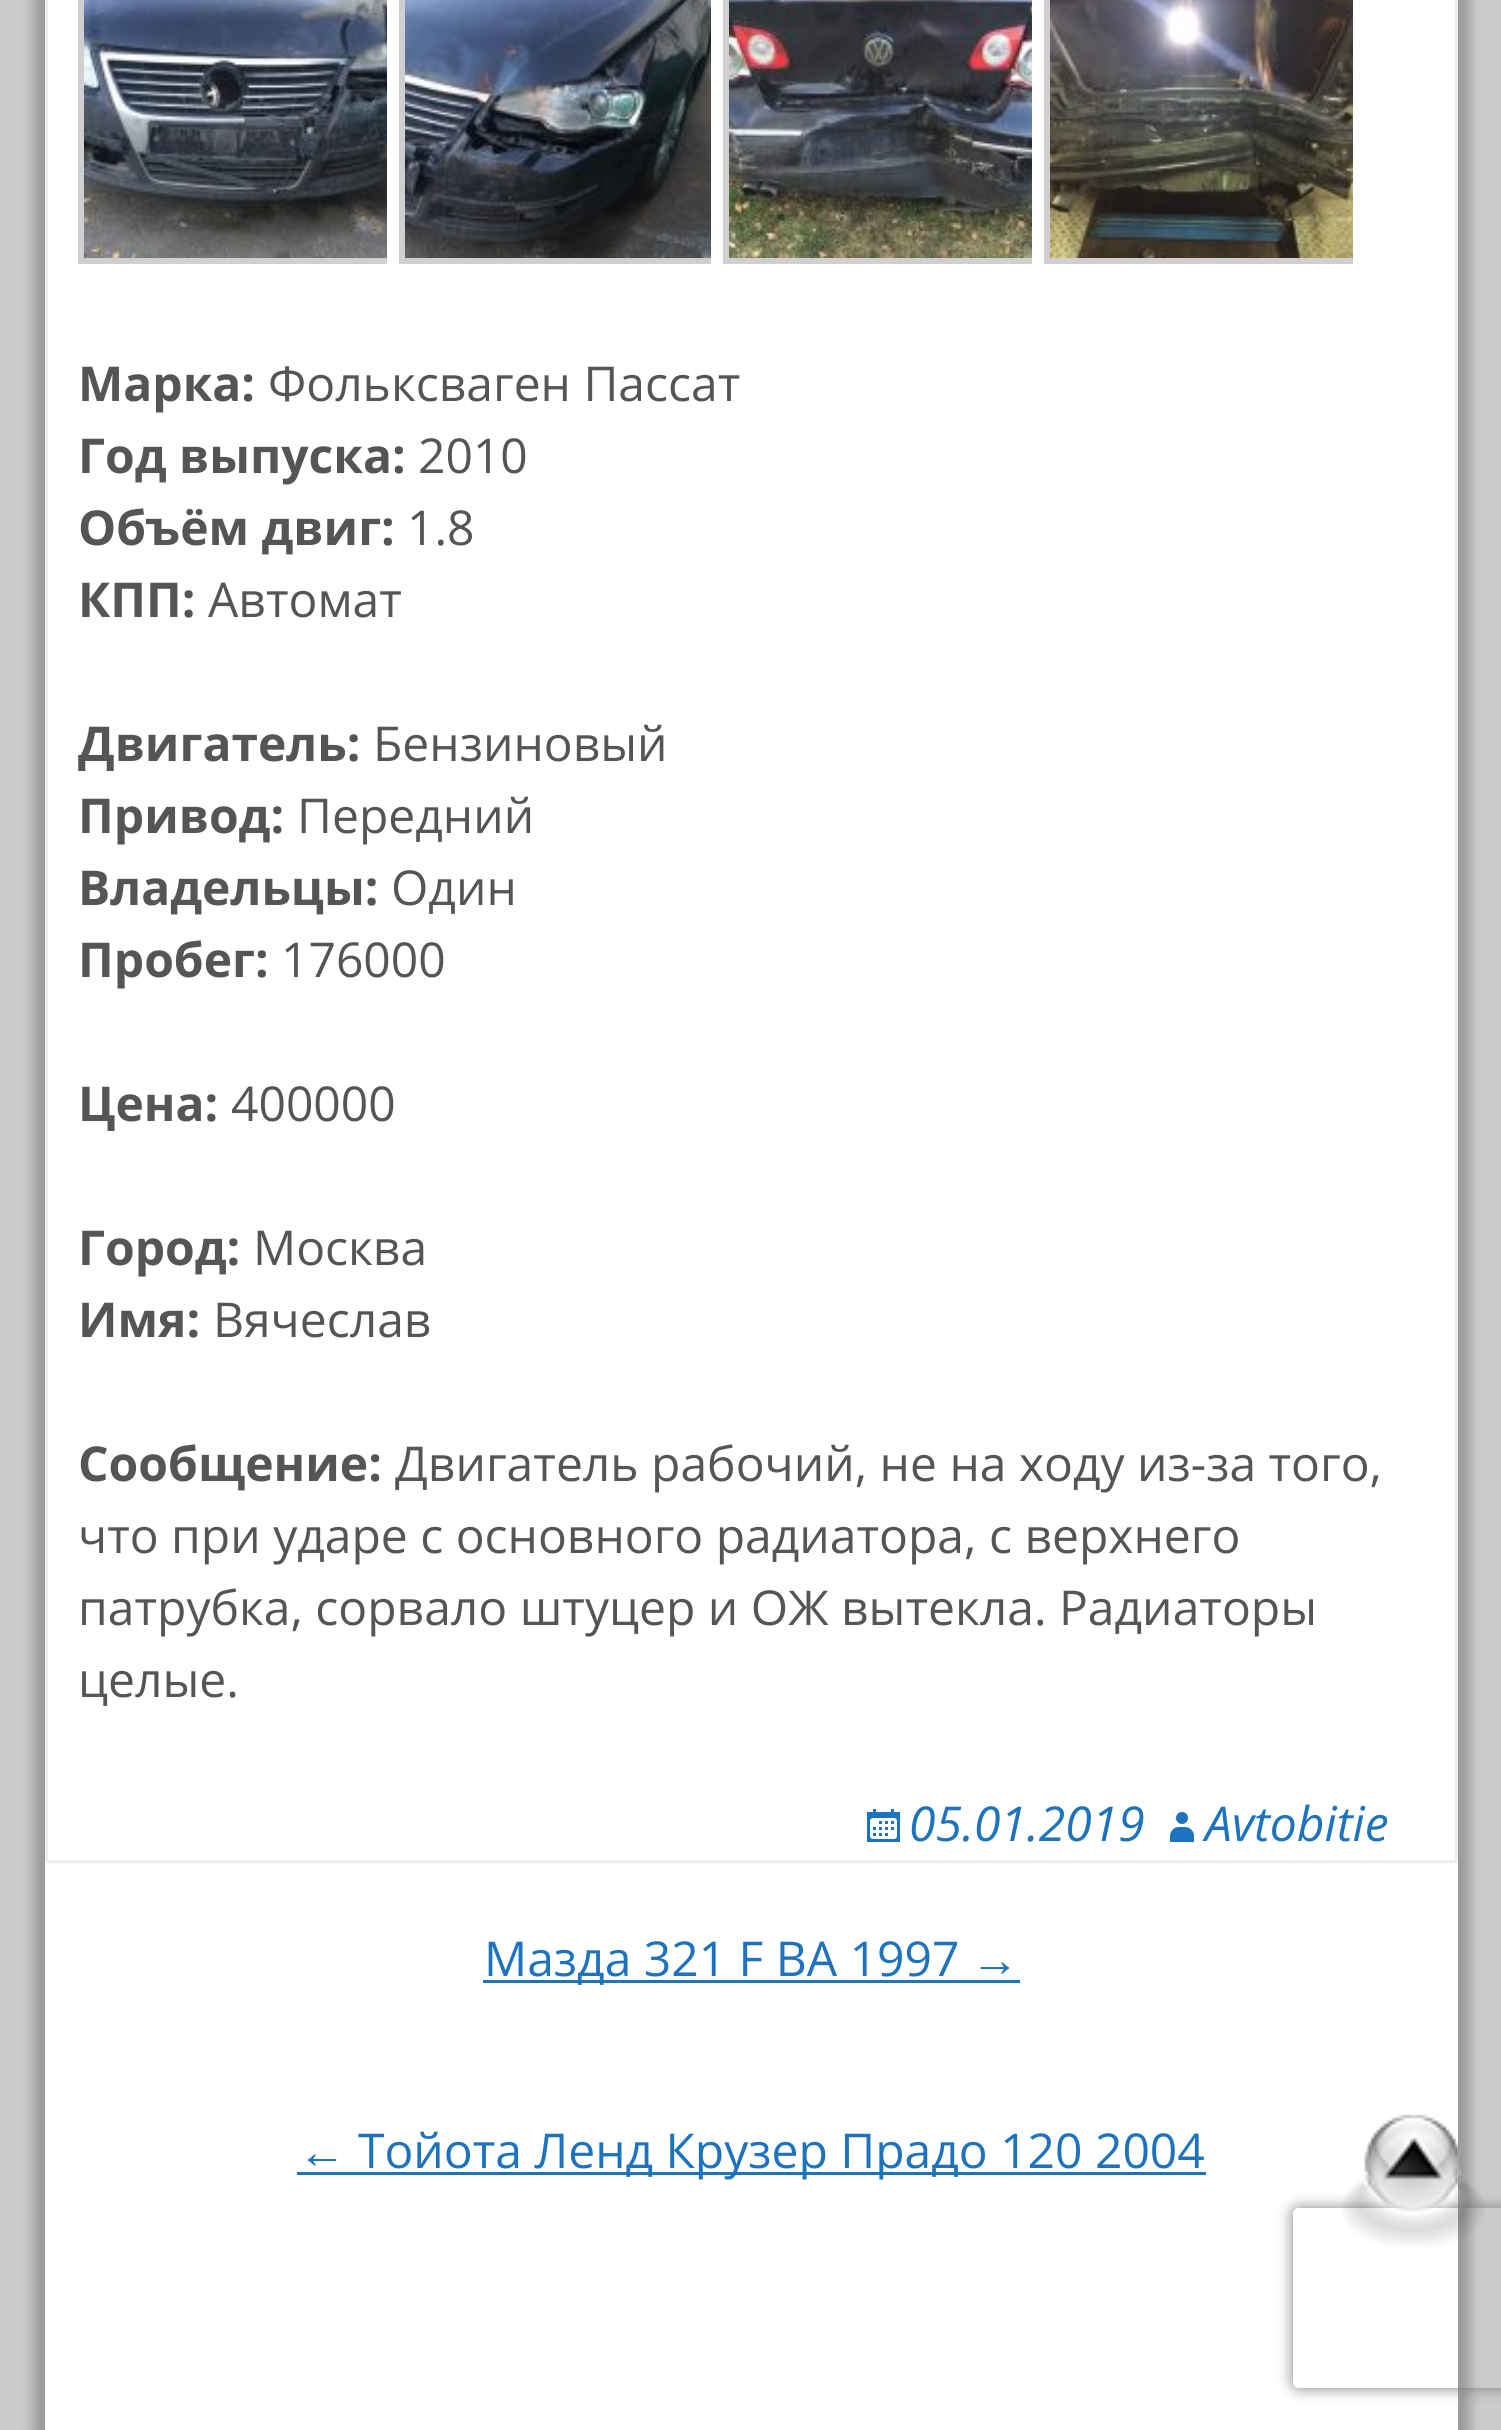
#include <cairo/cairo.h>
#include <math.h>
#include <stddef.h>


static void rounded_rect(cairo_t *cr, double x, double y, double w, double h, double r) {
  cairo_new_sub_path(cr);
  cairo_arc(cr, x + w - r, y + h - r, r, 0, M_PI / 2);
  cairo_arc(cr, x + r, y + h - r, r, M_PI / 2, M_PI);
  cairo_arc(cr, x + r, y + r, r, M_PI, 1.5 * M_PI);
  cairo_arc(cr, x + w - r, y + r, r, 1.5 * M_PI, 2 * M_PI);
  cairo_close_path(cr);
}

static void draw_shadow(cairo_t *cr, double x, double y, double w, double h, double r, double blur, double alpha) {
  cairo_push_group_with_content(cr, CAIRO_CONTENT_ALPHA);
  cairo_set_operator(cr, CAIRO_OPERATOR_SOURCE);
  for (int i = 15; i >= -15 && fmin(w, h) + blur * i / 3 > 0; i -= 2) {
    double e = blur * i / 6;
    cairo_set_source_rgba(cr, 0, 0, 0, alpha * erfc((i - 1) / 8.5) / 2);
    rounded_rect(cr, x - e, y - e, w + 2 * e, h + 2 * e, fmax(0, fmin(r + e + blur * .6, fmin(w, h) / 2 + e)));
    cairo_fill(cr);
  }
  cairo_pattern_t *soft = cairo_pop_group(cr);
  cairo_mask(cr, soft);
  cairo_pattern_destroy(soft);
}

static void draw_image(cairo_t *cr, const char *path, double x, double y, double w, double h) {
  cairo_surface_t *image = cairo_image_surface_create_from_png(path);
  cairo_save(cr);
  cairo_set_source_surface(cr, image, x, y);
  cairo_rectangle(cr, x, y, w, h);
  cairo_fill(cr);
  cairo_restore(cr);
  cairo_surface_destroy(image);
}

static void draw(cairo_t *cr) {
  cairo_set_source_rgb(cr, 204 / 255.0, 204 / 255.0, 204 / 255.0);
  cairo_paint(cr);
  cairo_set_source_rgb(cr, 153 / 255.0, 153 / 255.0, 153 / 255.0);
  draw_shadow(cr, 33, -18, 1437, 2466, 0, 6, 1);
  cairo_set_source_rgb(cr, 1, 1, 1);
  cairo_rectangle(cr, 45, 0, 1413, 2430);
  cairo_fill(cr);
  cairo_rectangle(cr, 46.5, -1.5, 1410, 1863);
  cairo_set_source_rgb(cr, 238 / 255.0, 238 / 255.0, 238 / 255.0);
  cairo_set_line_width(cr, 3);
  cairo_stroke(cr);
  cairo_save(cr);
  cairo_rectangle(cr, 78, 0, 309, 264);
  cairo_clip(cr);
  cairo_rectangle(cr, 81, -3, 315, 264);
  cairo_set_source_rgb(cr, 207 / 255.0, 207 / 255.0, 207 / 255.0);
  cairo_set_line_width(cr, 6);
  cairo_stroke(cr);
  cairo_restore(cr);
  draw_image(cr, "images/1.png", 84, 0, 303, 258);
  cairo_save(cr);
  cairo_rectangle(cr, 399, 0, 312, 264);
  cairo_clip(cr);
  cairo_rectangle(cr, 402, -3, 318, 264);
  cairo_set_source_rgb(cr, 207 / 255.0, 207 / 255.0, 207 / 255.0);
  cairo_set_line_width(cr, 6);
  cairo_stroke(cr);
  cairo_restore(cr);
  draw_image(cr, "images/2.png", 405, 0, 306, 258);
  cairo_save(cr);
  cairo_rectangle(cr, 723, 0, 309, 264);
  cairo_clip(cr);
  cairo_rectangle(cr, 726, -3, 315, 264);
  cairo_set_source_rgb(cr, 207 / 255.0, 207 / 255.0, 207 / 255.0);
  cairo_set_line_width(cr, 6);
  cairo_stroke(cr);
  cairo_restore(cr);
  draw_image(cr, "images/3.png", 729, 0, 303, 258);
  cairo_save(cr);
  cairo_rectangle(cr, 1044, 0, 309, 264);
  cairo_clip(cr);
  cairo_rectangle(cr, 1047, -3, 315, 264);
  cairo_set_source_rgb(cr, 207 / 255.0, 207 / 255.0, 207 / 255.0);
  cairo_set_line_width(cr, 6);
  cairo_stroke(cr);
  cairo_restore(cr);
  draw_image(cr, "images/4.png", 1050, 0, 303, 258);
  draw_image(cr, "images/5.png", 867, 1809, 33, 33);
  draw_image(cr, "images/6.png", 1170, 1812, 24, 30);
  cairo_set_source_rgb(cr, 30 / 255.0, 115 / 255.0, 190 / 255.0);
  cairo_rectangle(cr, 483, 1980, 537, 3);
  cairo_fill(cr);
  cairo_rectangle(cr, 297, 2172, 909, 3);
  cairo_fill(cr);
  cairo_save(cr);
  cairo_set_fill_rule(cr, CAIRO_FILL_RULE_EVEN_ODD);
  cairo_new_path(cr);
  cairo_move_to(cr, 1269, 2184);
  cairo_line_to(cr, 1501, 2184);
  cairo_line_to(cr, 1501, 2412);
  cairo_line_to(cr, 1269, 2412);
  cairo_close_path(cr);
  cairo_move_to(cr, 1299, 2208);
  cairo_line_to(cr, 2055, 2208);
  cairo_curve_to(cr, 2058.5, 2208, 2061, 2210.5, 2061, 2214);
  cairo_line_to(cr, 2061, 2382);
  cairo_curve_to(cr, 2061, 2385.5, 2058.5, 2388, 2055, 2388);
  cairo_line_to(cr, 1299, 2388);
  cairo_curve_to(cr, 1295.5, 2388, 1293, 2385.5, 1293, 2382);
  cairo_line_to(cr, 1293, 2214);
  cairo_curve_to(cr, 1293, 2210.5, 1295.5, 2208, 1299, 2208);
  cairo_close_path(cr);
  cairo_clip(cr);
  cairo_set_source_rgb(cr, 128 / 255.0, 128 / 255.0, 128 / 255.0);
  draw_shadow(cr, 1293, 2208, 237, 180, 6, 7.5, 1);
  cairo_restore(cr);
  draw_image(cr, "images/7.png", 1342, 2114, 143, 133);
  cairo_select_font_face(cr, "Open Sans", CAIRO_FONT_SLANT_NORMAL, CAIRO_FONT_WEIGHT_BOLD);
  cairo_set_font_size(cr, 48);
  cairo_set_source_rgb(cr, 85 / 255.0, 85 / 255.0, 85 / 255.0);
  cairo_move_to(cr, 78, 401);
  cairo_show_text(cr, "Марка:");
  cairo_select_font_face(cr, "Open Sans", CAIRO_FONT_SLANT_NORMAL, CAIRO_FONT_WEIGHT_NORMAL);
  cairo_move_to(cr, 268, 401);
  cairo_show_text(cr, "Фольксваген Пассат");
  cairo_select_font_face(cr, "Open Sans", CAIRO_FONT_SLANT_NORMAL, CAIRO_FONT_WEIGHT_BOLD);
  cairo_move_to(cr, 78, 473);
  cairo_show_text(cr, "Год выпуска:");
  cairo_select_font_face(cr, "Open Sans", CAIRO_FONT_SLANT_NORMAL, CAIRO_FONT_WEIGHT_NORMAL);
  cairo_move_to(cr, 418, 473);
  cairo_show_text(cr, "2010");
  cairo_select_font_face(cr, "Open Sans", CAIRO_FONT_SLANT_NORMAL, CAIRO_FONT_WEIGHT_BOLD);
  cairo_move_to(cr, 78, 545);
  cairo_show_text(cr, "Объём двиг:");
  cairo_select_font_face(cr, "Open Sans", CAIRO_FONT_SLANT_NORMAL, CAIRO_FONT_WEIGHT_NORMAL);
  cairo_move_to(cr, 407, 545);
  cairo_show_text(cr, "1.8");
  cairo_select_font_face(cr, "Open Sans", CAIRO_FONT_SLANT_NORMAL, CAIRO_FONT_WEIGHT_BOLD);
  cairo_move_to(cr, 78, 617);
  cairo_show_text(cr, "КПП:");
  cairo_select_font_face(cr, "Open Sans", CAIRO_FONT_SLANT_NORMAL, CAIRO_FONT_WEIGHT_NORMAL);
  cairo_move_to(cr, 208, 617);
  cairo_show_text(cr, "Автомат");
  cairo_select_font_face(cr, "Open Sans", CAIRO_FONT_SLANT_NORMAL, CAIRO_FONT_WEIGHT_BOLD);
  cairo_move_to(cr, 78, 761);
  cairo_show_text(cr, "Двигатель:");
  cairo_select_font_face(cr, "Open Sans", CAIRO_FONT_SLANT_NORMAL, CAIRO_FONT_WEIGHT_NORMAL);
  cairo_move_to(cr, 373, 761);
  cairo_show_text(cr, "Бензиновый");
  cairo_select_font_face(cr, "Open Sans", CAIRO_FONT_SLANT_NORMAL, CAIRO_FONT_WEIGHT_BOLD);
  cairo_move_to(cr, 78, 833);
  cairo_show_text(cr, "Привод:");
  cairo_select_font_face(cr, "Open Sans", CAIRO_FONT_SLANT_NORMAL, CAIRO_FONT_WEIGHT_NORMAL);
  cairo_move_to(cr, 297, 833);
  cairo_show_text(cr, "Передний");
  cairo_select_font_face(cr, "Open Sans", CAIRO_FONT_SLANT_NORMAL, CAIRO_FONT_WEIGHT_BOLD);
  cairo_move_to(cr, 78, 905);
  cairo_show_text(cr, "Владельцы:");
  cairo_select_font_face(cr, "Open Sans", CAIRO_FONT_SLANT_NORMAL, CAIRO_FONT_WEIGHT_NORMAL);
  cairo_move_to(cr, 391, 905);
  cairo_show_text(cr, "Один");
  cairo_select_font_face(cr, "Open Sans", CAIRO_FONT_SLANT_NORMAL, CAIRO_FONT_WEIGHT_BOLD);
  cairo_move_to(cr, 78, 977);
  cairo_show_text(cr, "Пробег:");
  cairo_select_font_face(cr, "Open Sans", CAIRO_FONT_SLANT_NORMAL, CAIRO_FONT_WEIGHT_NORMAL);
  cairo_move_to(cr, 281, 977);
  cairo_show_text(cr, "176000");
  cairo_select_font_face(cr, "Open Sans", CAIRO_FONT_SLANT_NORMAL, CAIRO_FONT_WEIGHT_BOLD);
  cairo_move_to(cr, 78, 1121);
  cairo_show_text(cr, "Цена:");
  cairo_select_font_face(cr, "Open Sans", CAIRO_FONT_SLANT_NORMAL, CAIRO_FONT_WEIGHT_NORMAL);
  cairo_move_to(cr, 231, 1121);
  cairo_show_text(cr, "400000");
  cairo_select_font_face(cr, "Open Sans", CAIRO_FONT_SLANT_NORMAL, CAIRO_FONT_WEIGHT_BOLD);
  cairo_move_to(cr, 78, 1265);
  cairo_show_text(cr, "Город:");
  cairo_select_font_face(cr, "Open Sans", CAIRO_FONT_SLANT_NORMAL, CAIRO_FONT_WEIGHT_NORMAL);
  cairo_move_to(cr, 253, 1265);
  cairo_show_text(cr, "Москва");
  cairo_select_font_face(cr, "Open Sans", CAIRO_FONT_SLANT_NORMAL, CAIRO_FONT_WEIGHT_BOLD);
  cairo_move_to(cr, 78, 1337);
  cairo_show_text(cr, "Имя:");
  cairo_select_font_face(cr, "Open Sans", CAIRO_FONT_SLANT_NORMAL, CAIRO_FONT_WEIGHT_NORMAL);
  cairo_move_to(cr, 213, 1337);
  cairo_show_text(cr, "Вячеслав");
  cairo_select_font_face(cr, "Open Sans", CAIRO_FONT_SLANT_NORMAL, CAIRO_FONT_WEIGHT_BOLD);
  cairo_move_to(cr, 78, 1481);
  cairo_show_text(cr, "Сообщение:");
  cairo_select_font_face(cr, "Open Sans", CAIRO_FONT_SLANT_NORMAL, CAIRO_FONT_WEIGHT_NORMAL);
  cairo_move_to(cr, 395, 1481);
  cairo_show_text(cr, "Двигатель рабочий, не на ходу из-за того,");
  cairo_move_to(cr, 78, 1553);
  cairo_show_text(cr, "что при ударе с основного радиатора, с верхнего");
  cairo_move_to(cr, 78, 1625);
  cairo_show_text(cr, "патрубка, сорвало штуцер и ОЖ вытекла. Радиаторы");
  cairo_move_to(cr, 78, 1697);
  cairo_show_text(cr, "целые.");
  cairo_select_font_face(cr, "Open Sans", CAIRO_FONT_SLANT_ITALIC, CAIRO_FONT_WEIGHT_NORMAL);
  cairo_set_source_rgb(cr, 30 / 255.0, 115 / 255.0, 190 / 255.0);
  cairo_move_to(cr, 909, 1841);
  cairo_show_text(cr, "05.01.2019");
  cairo_move_to(cr, 1205, 1841);
  cairo_show_text(cr, "Avtobitie");
  cairo_select_font_face(cr, "Open Sans", CAIRO_FONT_SLANT_NORMAL, CAIRO_FONT_WEIGHT_NORMAL);
  cairo_move_to(cr, 484, 1976);
  cairo_show_text(cr, "Мазда 321 F BA 1997");
  cairo_select_font_face(cr, "Liberation Sans", CAIRO_FONT_SLANT_NORMAL, CAIRO_FONT_WEIGHT_NORMAL);
  cairo_move_to(cr, 971, 1976);
  cairo_show_text(cr, "→");
  cairo_move_to(cr, 298, 2168);
  cairo_show_text(cr, "←");
  cairo_select_font_face(cr, "Open Sans", CAIRO_FONT_SLANT_NORMAL, CAIRO_FONT_WEIGHT_NORMAL);
  cairo_move_to(cr, 358, 2168);
  cairo_show_text(cr, "Тойота Ленд Крузер Прадо 120 2004");
}

int main(void) {
  cairo_surface_t *surface = cairo_image_surface_create(CAIRO_FORMAT_RGB24, 1501, 2430);
  cairo_t *cr = cairo_create(surface);
  cairo_font_options_t *options = cairo_font_options_create();
  cairo_font_options_set_hint_metrics(options, CAIRO_HINT_METRICS_OFF);
  cairo_font_options_set_hint_style(options, CAIRO_HINT_STYLE_NONE);
  cairo_set_font_options(cr, options);
  cairo_set_miter_limit(cr, 4);
  draw(cr);
  cairo_surface_write_to_png(surface, "out.png");
  cairo_font_options_destroy(options);
  cairo_destroy(cr);
  cairo_surface_destroy(surface);
  return 0;
}
